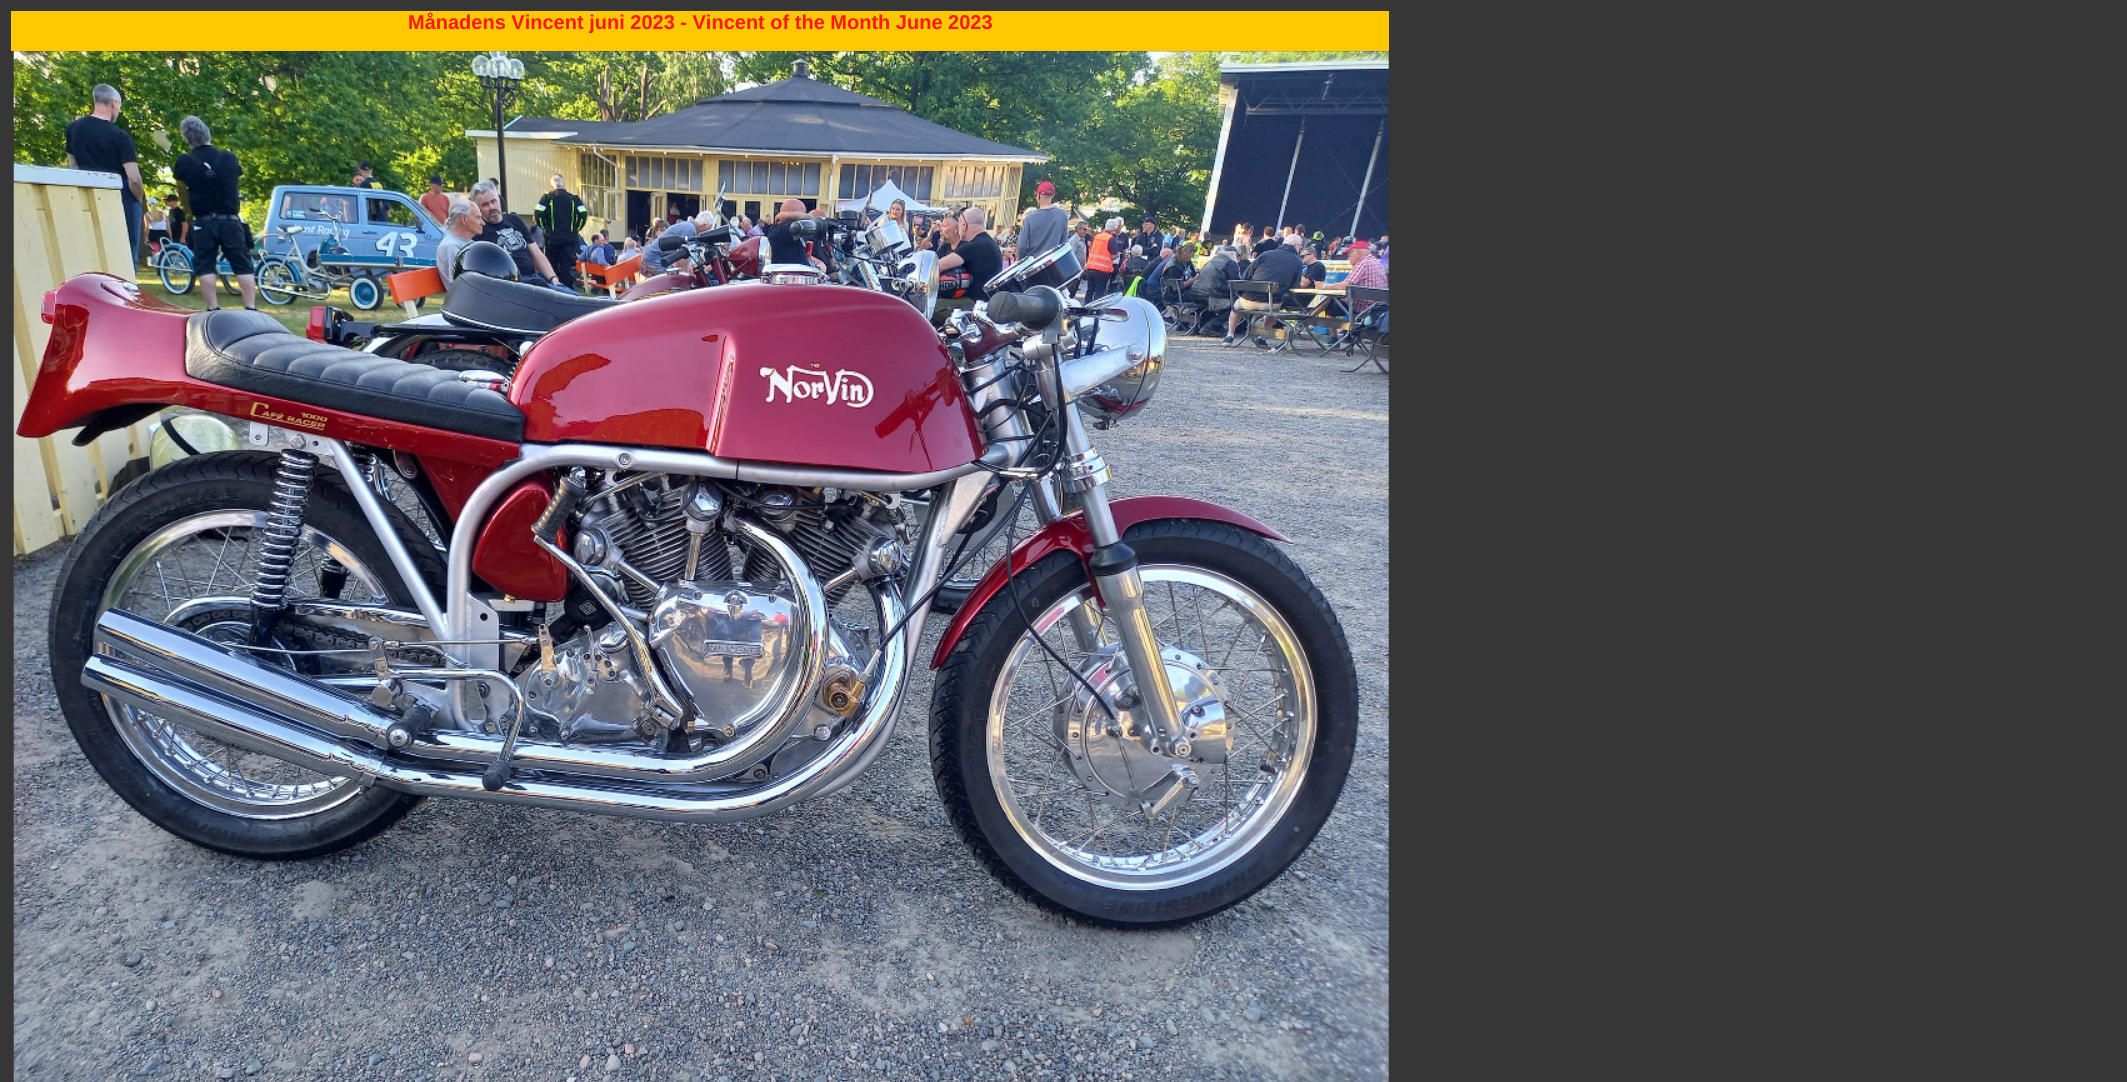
#include <cairo/cairo.h>
#include <math.h>
#include <stddef.h>


static void draw_image(cairo_t *cr, const char *path, double x, double y, double w, double h) {
  cairo_surface_t *image = cairo_image_surface_create_from_png(path);
  cairo_save(cr);
  cairo_set_source_surface(cr, image, x, y);
  cairo_rectangle(cr, x, y, w, h);
  cairo_fill(cr);
  cairo_restore(cr);
  cairo_surface_destroy(image);
}

static void draw(cairo_t *cr) {
  cairo_set_source_rgb(cr, 54 / 255.0, 54 / 255.0, 54 / 255.0);
  cairo_paint(cr);
  cairo_set_source_rgb(cr, 1, 200 / 255.0, 3 / 255.0);
  cairo_rectangle(cr, 11, 11, 1378, 40);
  cairo_fill(cr);
  draw_image(cr, "images/1.png", 13, 51, 1376, 1031);
  cairo_select_font_face(cr, "Liberation Sans", CAIRO_FONT_SLANT_NORMAL, CAIRO_FONT_WEIGHT_BOLD);
  cairo_set_font_size(cr, 20);
  cairo_set_source_rgb(cr, 1, 23 / 255.0, 17 / 255.0);
  cairo_move_to(cr, 408, 29);
  cairo_show_text(cr, "Månadens Vincent juni 2023 - Vincent of the Month June 2023");
}

int main(void) {
  cairo_surface_t *surface = cairo_image_surface_create(CAIRO_FORMAT_RGB24, 2127, 1082);
  cairo_t *cr = cairo_create(surface);
  cairo_font_options_t *options = cairo_font_options_create();
  cairo_font_options_set_hint_metrics(options, CAIRO_HINT_METRICS_OFF);
  cairo_font_options_set_hint_style(options, CAIRO_HINT_STYLE_NONE);
  cairo_set_font_options(cr, options);
  cairo_set_miter_limit(cr, 4);
  draw(cr);
  cairo_surface_write_to_png(surface, "out.png");
  cairo_font_options_destroy(options);
  cairo_destroy(cr);
  cairo_surface_destroy(surface);
  return 0;
}
